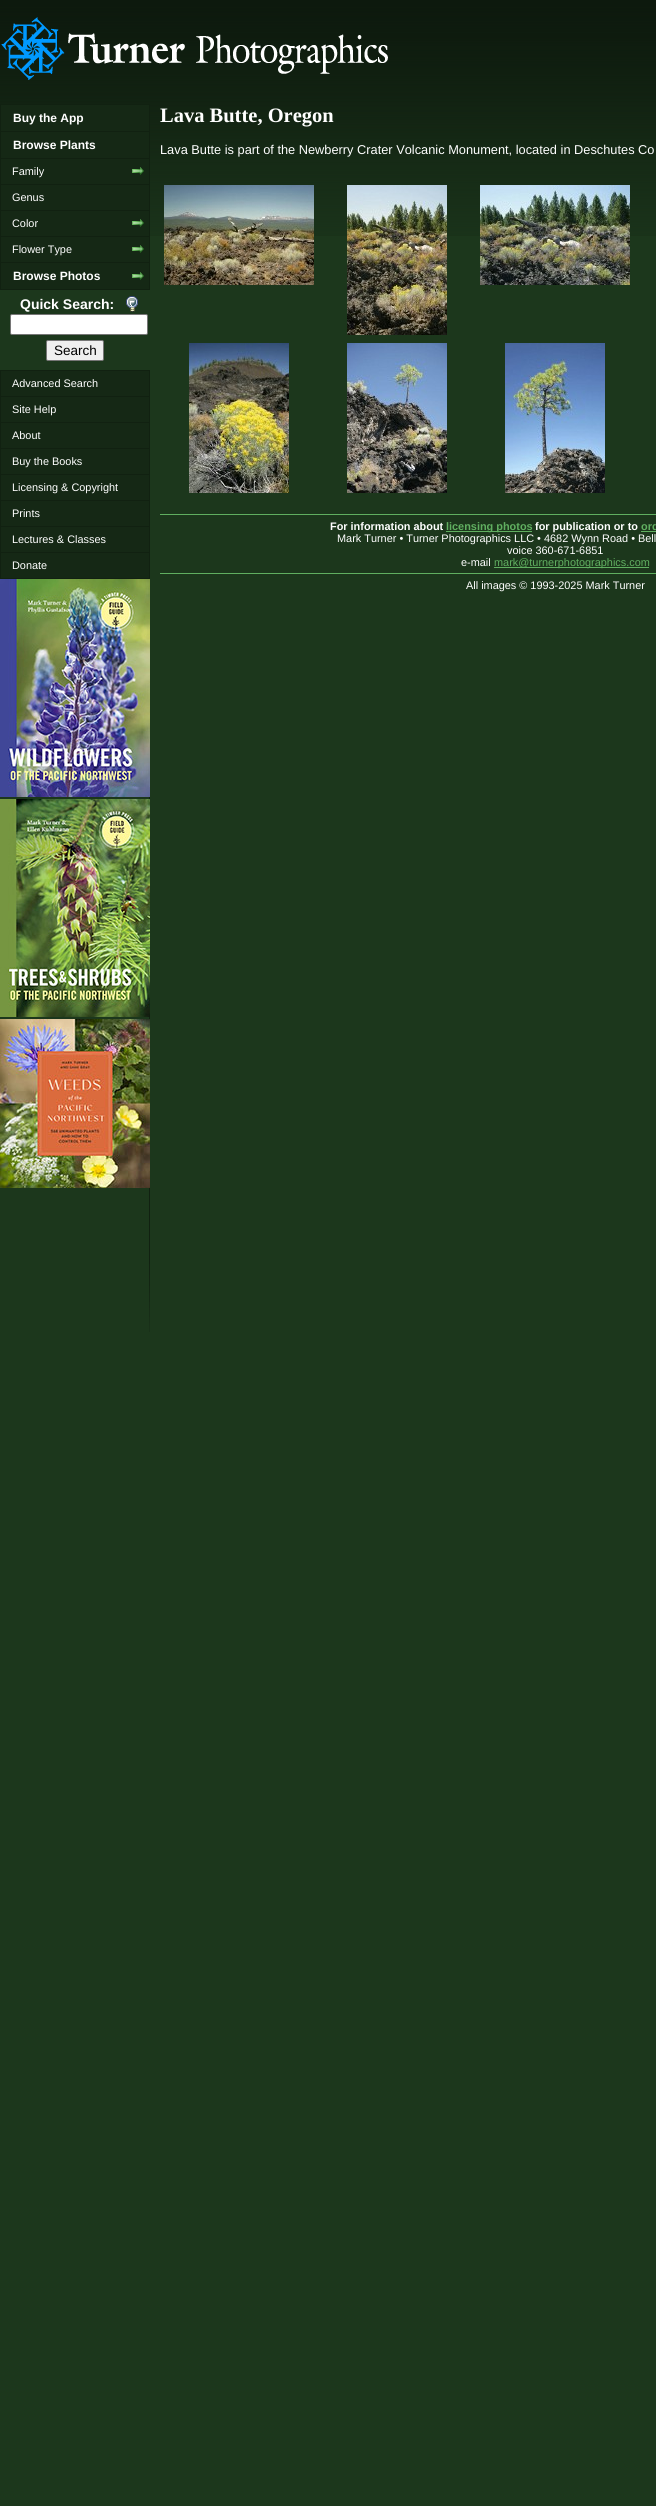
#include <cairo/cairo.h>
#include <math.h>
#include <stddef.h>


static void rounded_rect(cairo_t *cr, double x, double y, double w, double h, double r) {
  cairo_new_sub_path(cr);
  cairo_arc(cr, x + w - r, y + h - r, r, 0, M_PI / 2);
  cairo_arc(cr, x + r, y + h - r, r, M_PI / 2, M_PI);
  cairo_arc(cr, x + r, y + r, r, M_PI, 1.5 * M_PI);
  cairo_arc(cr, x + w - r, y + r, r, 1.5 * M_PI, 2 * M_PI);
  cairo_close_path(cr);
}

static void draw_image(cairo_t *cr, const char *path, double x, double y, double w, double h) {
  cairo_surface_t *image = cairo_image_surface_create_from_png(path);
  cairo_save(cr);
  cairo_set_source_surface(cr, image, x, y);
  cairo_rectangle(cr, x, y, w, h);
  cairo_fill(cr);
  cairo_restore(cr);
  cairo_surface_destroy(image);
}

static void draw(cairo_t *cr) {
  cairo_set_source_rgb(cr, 28 / 255.0, 55 / 255.0, 28 / 255.0);
  cairo_paint(cr);
  draw_image(cr, "images/1.png", 0, 0, 656, 236);
  draw_image(cr, "images/2.png", 1, 17, 387, 63);
  draw_image(cr, "images/3.png", 149, 797, 1, 535);
  cairo_set_source_rgb(cr, 21 / 255.0, 40 / 255.0, 21 / 255.0);
  cairo_rectangle(cr, 1, 105, 148, 184);
  cairo_fill(cr);
  cairo_rectangle(cr, 0.5, 104.5, 149, 27);
  cairo_set_source_rgb(cr, 17 / 255.0, 33 / 255.0, 17 / 255.0);
  cairo_set_line_width(cr, 1);
  cairo_stroke(cr);
  cairo_rectangle(cr, 149, 132, 1, 158);
  cairo_fill(cr);
  cairo_rectangle(cr, 0, 158, 150, 1);
  cairo_fill(cr);
  cairo_rectangle(cr, 0, 132, 1, 27);
  cairo_fill(cr);
  cairo_rectangle(cr, 0, 184, 150, 1);
  cairo_fill(cr);
  cairo_rectangle(cr, 0, 159, 1, 26);
  cairo_fill(cr);
  draw_image(cr, "images/4.png", 132, 167, 12, 8);
  cairo_rectangle(cr, 0, 210, 150, 1);
  cairo_fill(cr);
  cairo_rectangle(cr, 0, 185, 1, 26);
  cairo_fill(cr);
  cairo_rectangle(cr, 0, 236, 150, 1);
  cairo_fill(cr);
  cairo_rectangle(cr, 0, 211, 1, 26);
  cairo_fill(cr);
  draw_image(cr, "images/4.png", 132, 219, 12, 8);
  cairo_rectangle(cr, 0, 262, 150, 1);
  cairo_fill(cr);
  cairo_rectangle(cr, 0, 237, 1, 26);
  cairo_fill(cr);
  draw_image(cr, "images/4.png", 132, 245, 12, 8);
  cairo_rectangle(cr, 0, 289, 150, 1);
  cairo_fill(cr);
  cairo_rectangle(cr, 0, 263, 1, 27);
  cairo_fill(cr);
  draw_image(cr, "images/4.png", 132, 272, 12, 8);
  draw_image(cr, "images/5.png", 126, 296, 12, 16);
  cairo_set_source_rgb(cr, 1, 1, 1);
  rounded_rect(cr, 10.5, 314.5, 137, 20, 1.5);
  cairo_fill_preserve(cr);
  cairo_set_source_rgb(cr, 118 / 255.0, 118 / 255.0, 118 / 255.0);
  cairo_stroke(cr);
  cairo_set_source_rgb(cr, 239 / 255.0, 239 / 255.0, 239 / 255.0);
  rounded_rect(cr, 46.5, 340.5, 57, 20, 1.5);
  cairo_fill_preserve(cr);
  cairo_set_source_rgb(cr, 118 / 255.0, 118 / 255.0, 118 / 255.0);
  cairo_stroke(cr);
  cairo_set_source_rgb(cr, 21 / 255.0, 40 / 255.0, 21 / 255.0);
  cairo_rectangle(cr, 1, 371, 148, 207);
  cairo_fill(cr);
  cairo_rectangle(cr, 0.5, 370.5, 149, 26);
  cairo_set_source_rgb(cr, 17 / 255.0, 33 / 255.0, 17 / 255.0);
  cairo_stroke(cr);
  cairo_rectangle(cr, 149, 397, 1, 182);
  cairo_fill(cr);
  cairo_rectangle(cr, 0, 422, 150, 1);
  cairo_fill(cr);
  cairo_rectangle(cr, 0, 397, 1, 26);
  cairo_fill(cr);
  cairo_rectangle(cr, 0, 448, 150, 1);
  cairo_fill(cr);
  cairo_rectangle(cr, 0, 423, 1, 26);
  cairo_fill(cr);
  cairo_rectangle(cr, 0, 474, 150, 1);
  cairo_fill(cr);
  cairo_rectangle(cr, 0, 449, 1, 26);
  cairo_fill(cr);
  cairo_rectangle(cr, 0, 500, 150, 1);
  cairo_fill(cr);
  cairo_rectangle(cr, 0, 475, 1, 26);
  cairo_fill(cr);
  cairo_rectangle(cr, 0, 526, 150, 1);
  cairo_fill(cr);
  cairo_rectangle(cr, 0, 501, 1, 26);
  cairo_fill(cr);
  cairo_rectangle(cr, 0, 552, 150, 1);
  cairo_fill(cr);
  cairo_rectangle(cr, 0, 527, 1, 26);
  cairo_fill(cr);
  cairo_rectangle(cr, 0, 578, 150, 1);
  cairo_fill(cr);
  cairo_rectangle(cr, 0, 553, 1, 26);
  cairo_fill(cr);
  draw_image(cr, "images/6.png", 0, 579, 150, 218);
  draw_image(cr, "images/7.png", 0, 799, 150, 218);
  draw_image(cr, "images/8.png", 0, 1019, 150, 169);
  draw_image(cr, "images/9.png", 164, 185, 150, 100);
  draw_image(cr, "images/10.png", 347, 185, 100, 150);
  draw_image(cr, "images/11.png", 480, 185, 150, 100);
  draw_image(cr, "images/12.png", 189, 343, 100, 150);
  draw_image(cr, "images/13.png", 347, 343, 100, 150);
  draw_image(cr, "images/14.png", 505, 343, 100, 150);
  cairo_set_source_rgb(cr, 96 / 255.0, 175 / 255.0, 96 / 255.0);
  cairo_rectangle(cr, 160, 514, 496, 1);
  cairo_fill(cr);
  cairo_rectangle(cr, 446, 531, 86, 1);
  cairo_fill(cr);
  cairo_rectangle(cr, 641, 531, 15, 1);
  cairo_fill(cr);
  cairo_rectangle(cr, 494, 567, 155, 1);
  cairo_fill(cr);
  cairo_rectangle(cr, 160, 573, 496, 1);
  cairo_fill(cr);
  cairo_select_font_face(cr, "Liberation Sans", CAIRO_FONT_SLANT_NORMAL, CAIRO_FONT_WEIGHT_BOLD);
  cairo_set_font_size(cr, 12);
  cairo_set_source_rgb(cr, 1, 1, 1);
  cairo_move_to(cr, 13, 122);
  cairo_show_text(cr, "Buy the App");
  cairo_move_to(cr, 13, 149);
  cairo_show_text(cr, "Browse Plants");
  cairo_select_font_face(cr, "Liberation Sans", CAIRO_FONT_SLANT_NORMAL, CAIRO_FONT_WEIGHT_NORMAL);
  cairo_set_font_size(cr, 10.9);
  cairo_move_to(cr, 12, 175);
  cairo_show_text(cr, "Family");
  cairo_move_to(cr, 12, 201);
  cairo_show_text(cr, "Genus");
  cairo_move_to(cr, 12, 227);
  cairo_show_text(cr, "Color");
  cairo_move_to(cr, 12, 253);
  cairo_show_text(cr, "Flower Type");
  cairo_select_font_face(cr, "Liberation Sans", CAIRO_FONT_SLANT_NORMAL, CAIRO_FONT_WEIGHT_BOLD);
  cairo_set_font_size(cr, 12);
  cairo_move_to(cr, 13, 280);
  cairo_show_text(cr, "Browse Photos");
  cairo_set_font_size(cr, 14);
  cairo_move_to(cr, 20, 309);
  cairo_show_text(cr, "Quick Search:");
  cairo_select_font_face(cr, "Liberation Sans", CAIRO_FONT_SLANT_NORMAL, CAIRO_FONT_WEIGHT_NORMAL);
  cairo_set_font_size(cr, 13.5);
  cairo_set_source_rgb(cr, 0, 0, 0);
  cairo_move_to(cr, 54, 355);
  cairo_show_text(cr, "Search");
  cairo_set_font_size(cr, 10.9);
  cairo_set_source_rgb(cr, 1, 1, 1);
  cairo_move_to(cr, 12, 387);
  cairo_show_text(cr, "Advanced Search");
  cairo_move_to(cr, 12, 413);
  cairo_show_text(cr, "Site Help");
  cairo_move_to(cr, 12, 439);
  cairo_show_text(cr, "About");
  cairo_move_to(cr, 12, 465);
  cairo_show_text(cr, "Buy the Books");
  cairo_move_to(cr, 12, 491);
  cairo_show_text(cr, "Licensing & Copyright");
  cairo_move_to(cr, 12, 517);
  cairo_show_text(cr, "Prints");
  cairo_move_to(cr, 12, 543);
  cairo_show_text(cr, "Lectures & Classes");
  cairo_move_to(cr, 12, 569);
  cairo_show_text(cr, "Donate");
  cairo_select_font_face(cr, "Liberation Serif", CAIRO_FONT_SLANT_NORMAL, CAIRO_FONT_WEIGHT_BOLD);
  cairo_set_font_size(cr, 20.5);
  cairo_move_to(cr, 160, 122);
  cairo_show_text(cr, "Lava Butte, Oregon");
  cairo_select_font_face(cr, "Liberation Sans", CAIRO_FONT_SLANT_NORMAL, CAIRO_FONT_WEIGHT_NORMAL);
  cairo_set_font_size(cr, 12.8);
  cairo_move_to(cr, 160, 154);
  cairo_show_text(cr, "Lava Butte is part of the Newberry Crater Volcanic Monument, located in Deschutes Co");
  cairo_select_font_face(cr, "Liberation Sans", CAIRO_FONT_SLANT_NORMAL, CAIRO_FONT_WEIGHT_BOLD);
  cairo_set_font_size(cr, 10.9);
  cairo_move_to(cr, 330, 530);
  cairo_show_text(cr, "For information about");
  cairo_set_source_rgb(cr, 96 / 255.0, 175 / 255.0, 96 / 255.0);
  cairo_move_to(cr, 446, 530);
  cairo_show_text(cr, "licensing photos");
  cairo_set_source_rgb(cr, 1, 1, 1);
  cairo_move_to(cr, 535, 530);
  cairo_show_text(cr, "for publication or to");
  cairo_set_source_rgb(cr, 96 / 255.0, 175 / 255.0, 96 / 255.0);
  cairo_move_to(cr, 641, 530);
  cairo_show_text(cr, "ord");
  cairo_select_font_face(cr, "Liberation Sans", CAIRO_FONT_SLANT_NORMAL, CAIRO_FONT_WEIGHT_NORMAL);
  cairo_set_source_rgb(cr, 1, 1, 1);
  cairo_move_to(cr, 337, 542);
  cairo_show_text(cr, "Mark Turner • Turner Photographics LLC • 4682 Wynn Road • Bell");
  cairo_move_to(cr, 507, 554);
  cairo_show_text(cr, "voice 360-671-6851");
  cairo_move_to(cr, 461, 566);
  cairo_show_text(cr, "e-mail");
  cairo_set_source_rgb(cr, 96 / 255.0, 175 / 255.0, 96 / 255.0);
  cairo_move_to(cr, 494, 566);
  cairo_show_text(cr, "mark@turnerphotographics.com");
  cairo_set_source_rgb(cr, 1, 1, 1);
  cairo_move_to(cr, 466, 589);
  cairo_show_text(cr, "All images © 1993-2025 Mark Turner");
}

int main(void) {
  cairo_surface_t *surface = cairo_image_surface_create(CAIRO_FORMAT_RGB24, 656, 2506);
  cairo_t *cr = cairo_create(surface);
  cairo_font_options_t *options = cairo_font_options_create();
  cairo_font_options_set_hint_metrics(options, CAIRO_HINT_METRICS_OFF);
  cairo_font_options_set_hint_style(options, CAIRO_HINT_STYLE_NONE);
  cairo_set_font_options(cr, options);
  cairo_set_miter_limit(cr, 4);
  draw(cr);
  cairo_surface_write_to_png(surface, "out.png");
  cairo_font_options_destroy(options);
  cairo_destroy(cr);
  cairo_surface_destroy(surface);
  return 0;
}
